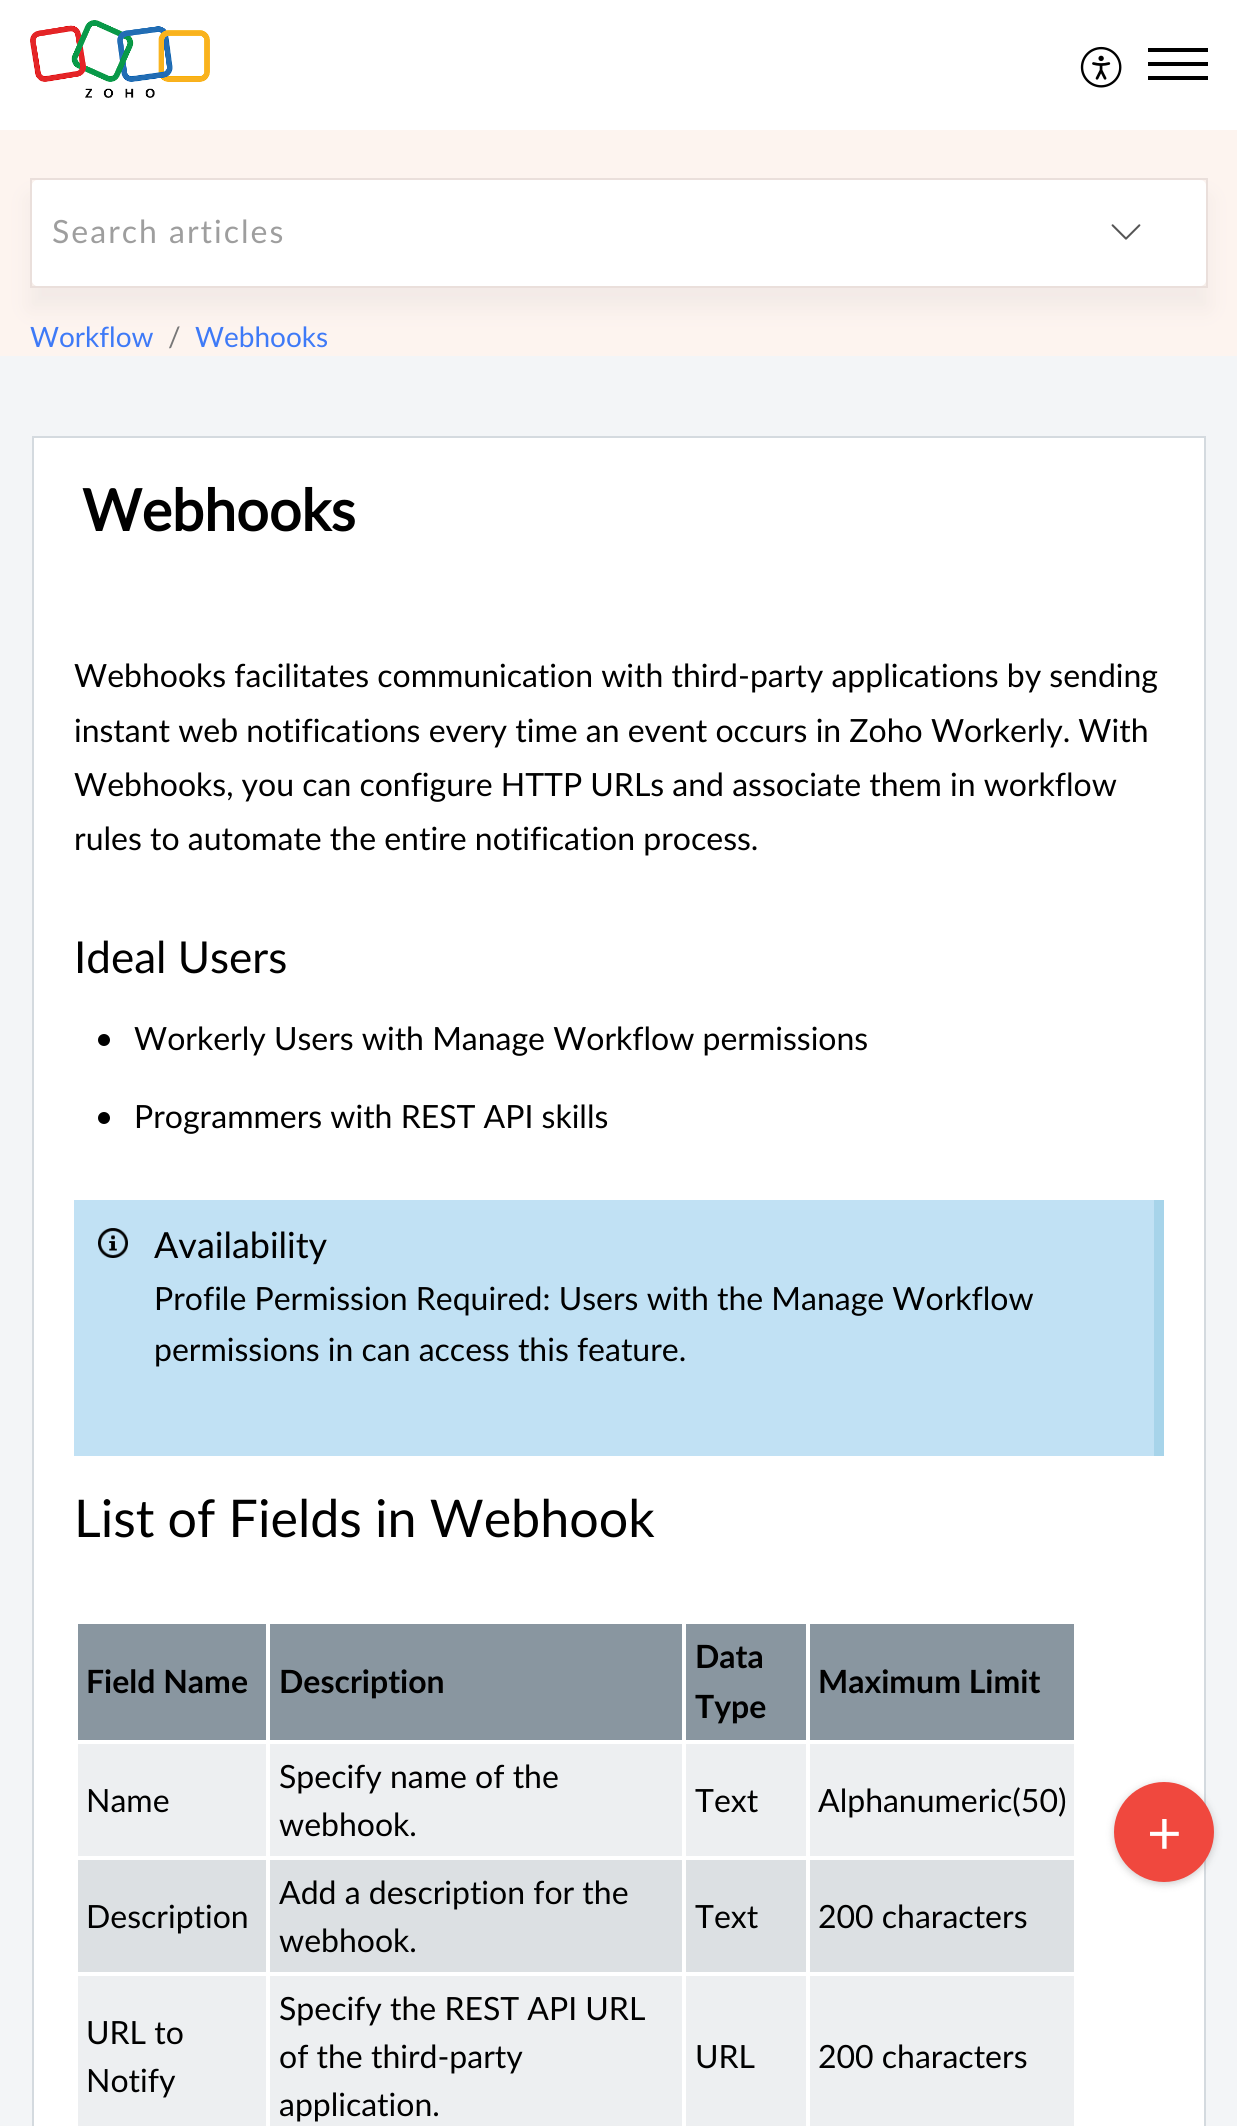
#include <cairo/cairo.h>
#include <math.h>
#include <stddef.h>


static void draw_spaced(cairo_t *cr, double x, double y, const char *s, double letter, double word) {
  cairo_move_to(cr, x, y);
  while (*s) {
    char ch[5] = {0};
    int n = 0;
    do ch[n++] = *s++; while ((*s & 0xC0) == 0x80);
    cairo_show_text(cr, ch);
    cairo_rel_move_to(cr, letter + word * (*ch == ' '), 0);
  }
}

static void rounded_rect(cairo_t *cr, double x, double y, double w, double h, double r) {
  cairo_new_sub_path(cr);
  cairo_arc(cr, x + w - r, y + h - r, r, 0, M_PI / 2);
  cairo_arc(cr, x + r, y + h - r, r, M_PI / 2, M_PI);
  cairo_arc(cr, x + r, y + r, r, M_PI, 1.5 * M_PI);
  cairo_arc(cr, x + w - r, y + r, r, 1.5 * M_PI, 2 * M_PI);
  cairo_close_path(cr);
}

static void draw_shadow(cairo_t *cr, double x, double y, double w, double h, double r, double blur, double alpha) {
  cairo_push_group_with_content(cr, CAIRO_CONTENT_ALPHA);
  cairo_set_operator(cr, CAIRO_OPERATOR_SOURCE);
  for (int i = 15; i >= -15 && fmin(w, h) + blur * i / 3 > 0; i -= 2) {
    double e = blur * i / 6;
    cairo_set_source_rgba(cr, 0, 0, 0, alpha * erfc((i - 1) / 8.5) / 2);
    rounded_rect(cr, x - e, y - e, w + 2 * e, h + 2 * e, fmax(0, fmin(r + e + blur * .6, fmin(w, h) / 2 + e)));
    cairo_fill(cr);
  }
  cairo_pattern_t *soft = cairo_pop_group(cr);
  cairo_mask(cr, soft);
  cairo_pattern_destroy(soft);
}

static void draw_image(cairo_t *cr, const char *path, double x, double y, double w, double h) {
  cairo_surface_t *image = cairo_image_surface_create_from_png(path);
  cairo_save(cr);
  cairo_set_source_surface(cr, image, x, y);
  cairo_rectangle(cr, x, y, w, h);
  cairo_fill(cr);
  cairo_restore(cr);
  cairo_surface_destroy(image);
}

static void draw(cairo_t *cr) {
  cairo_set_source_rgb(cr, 243 / 255.0, 245 / 255.0, 247 / 255.0);
  cairo_paint(cr);
  cairo_set_source_rgb(cr, 1, 1, 1);
  cairo_rectangle(cr, 0, 0, 1237, 130);
  cairo_fill(cr);
  draw_image(cr, "images/1.png", 30, 20, 180, 78);
  draw_image(cr, "images/2.png", 1080, 46, 42, 42);
  cairo_set_source_rgb(cr, 0, 0, 0);
  cairo_rectangle(cr, 1148, 62, 60, 4);
  cairo_fill(cr);
  cairo_rectangle(cr, 1148, 48, 60, 4);
  cairo_fill(cr);
  cairo_rectangle(cr, 1148, 76, 60, 4);
  cairo_fill(cr);
  cairo_set_source_rgb(cr, 253 / 255.0, 244 / 255.0, 239 / 255.0);
  cairo_rectangle(cr, 0, 130, 1237, 226);
  cairo_fill(cr);
  cairo_set_source_rgb(cr, 240 / 255.0, 232 / 255.0, 229 / 255.0);
  draw_shadow(cr, 30, 198, 1178, 110, 0, 10, 0.84);
  cairo_rectangle(cr, 31, 179, 1176, 108);
  cairo_set_source_rgb(cr, 234 / 255.0, 223 / 255.0, 219 / 255.0);
  cairo_stroke(cr);
  cairo_set_source_rgb(cr, 1, 1, 1);
  rounded_rect(cr, 32, 180, 1174, 106, 6);
  cairo_fill(cr);
  rounded_rect(cr, 32, 180, 1014, 106, 6);
  cairo_fill(cr);
  cairo_set_source_rgba(cr, 1, 1, 1, 0.5);
  cairo_new_path(cr);
  cairo_move_to(cr, 1046, 180);
  cairo_line_to(cr, 1200, 180);
  cairo_curve_to(cr, 1203.5, 180, 1206, 182.5, 1206, 186);
  cairo_line_to(cr, 1206, 280);
  cairo_curve_to(cr, 1206, 283.5, 1203.5, 286, 1200, 286);
  cairo_line_to(cr, 1046, 286);
  cairo_close_path(cr);
  cairo_fill(cr);
  draw_image(cr, "images/3.png", 1111, 224, 30, 16);
  cairo_set_source_rgb(cr, 1, 1, 1);
  cairo_rectangle(cr, 33, 437, 1172, 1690);
  cairo_fill_preserve(cr);
  cairo_set_source_rgb(cr, 212 / 255.0, 218 / 255.0, 223 / 255.0);
  cairo_stroke(cr);
  cairo_set_source_rgb(cr, 0, 0, 0);
  draw_shadow(cr, 1114, 1784, 100, 100, 50, 4, 0.2);
  cairo_set_source_rgb(cr, 240 / 255.0, 72 / 255.0, 62 / 255.0);
  cairo_arc(cr, 1164, 1832, 50, 0, 2 * M_PI);
  cairo_fill(cr);
  cairo_set_source_rgb(cr, 0, 0, 0);
  cairo_arc(cr, 104, 1040, 6, 0, 2 * M_PI);
  cairo_fill(cr);
  cairo_arc(cr, 104, 1118, 6, 0, 2 * M_PI);
  cairo_fill(cr);
  cairo_set_source_rgb(cr, 193 / 255.0, 225 / 255.0, 244 / 255.0);
  cairo_rectangle(cr, 74, 1200, 1080, 256);
  cairo_fill(cr);
  cairo_set_source_rgb(cr, 167 / 255.0, 212 / 255.0, 234 / 255.0);
  cairo_rectangle(cr, 1154, 1200, 10, 256);
  cairo_fill(cr);
  draw_image(cr, "images/4.png", 98, 1228, 30, 30);
  cairo_set_source_rgb(cr, 137 / 255.0, 150 / 255.0, 160 / 255.0);
  cairo_rectangle(cr, 78, 1624, 188, 116);
  cairo_fill(cr);
  cairo_rectangle(cr, 270, 1624, 412, 116);
  cairo_fill(cr);
  cairo_rectangle(cr, 686, 1624, 120, 116);
  cairo_fill(cr);
  cairo_rectangle(cr, 810, 1624, 264, 116);
  cairo_fill(cr);
  cairo_set_source_rgb(cr, 237 / 255.0, 239 / 255.0, 241 / 255.0);
  cairo_rectangle(cr, 78, 1744, 188, 112);
  cairo_fill(cr);
  cairo_rectangle(cr, 270, 1744, 412, 112);
  cairo_fill(cr);
  cairo_rectangle(cr, 686, 1744, 120, 112);
  cairo_fill(cr);
  cairo_rectangle(cr, 810, 1744, 264, 112);
  cairo_fill(cr);
  cairo_set_source_rgb(cr, 220 / 255.0, 224 / 255.0, 227 / 255.0);
  cairo_rectangle(cr, 78, 1860, 188, 112);
  cairo_fill(cr);
  cairo_rectangle(cr, 270, 1860, 412, 112);
  cairo_fill(cr);
  cairo_rectangle(cr, 686, 1860, 120, 112);
  cairo_fill(cr);
  cairo_rectangle(cr, 810, 1860, 264, 112);
  cairo_fill(cr);
  cairo_set_source_rgb(cr, 237 / 255.0, 239 / 255.0, 241 / 255.0);
  cairo_rectangle(cr, 78, 1976, 188, 150);
  cairo_fill(cr);
  cairo_rectangle(cr, 270, 1976, 412, 150);
  cairo_fill(cr);
  cairo_rectangle(cr, 686, 1976, 120, 150);
  cairo_fill(cr);
  cairo_rectangle(cr, 810, 1976, 264, 150);
  cairo_fill(cr);
  cairo_select_font_face(cr, "Lato", CAIRO_FONT_SLANT_NORMAL, CAIRO_FONT_WEIGHT_NORMAL);
  cairo_set_font_size(cr, 32);
  cairo_set_source_rgb(cr, 158 / 255.0, 158 / 255.0, 158 / 255.0);
  draw_spaced(cr, 52, 243, "Search articles", 2, 0);
  cairo_set_font_size(cr, 60);
  cairo_set_source_rgb(cr, 1, 1, 1);
  cairo_move_to(cr, 1147, 1854);
  cairo_show_text(cr, "+");
  cairo_set_font_size(cr, 28);
  cairo_set_source_rgb(cr, 62 / 255.0, 122 / 255.0, 247 / 255.0);
  cairo_move_to(cr, 30, 347);
  cairo_show_text(cr, "Workflow");
  cairo_set_source_rgb(cr, 119 / 255.0, 119 / 255.0, 119 / 255.0);
  cairo_move_to(cr, 168, 347);
  cairo_show_text(cr, "/");
  cairo_set_source_rgb(cr, 62 / 255.0, 122 / 255.0, 247 / 255.0);
  cairo_move_to(cr, 195, 347);
  cairo_show_text(cr, "Webhooks");
  cairo_select_font_face(cr, "Lato", CAIRO_FONT_SLANT_NORMAL, CAIRO_FONT_WEIGHT_BOLD);
  cairo_set_font_size(cr, 57.5);
  cairo_set_source_rgb(cr, 0, 0, 0);
  cairo_move_to(cr, 82, 531);
  cairo_show_text(cr, "Webhooks");
  cairo_select_font_face(cr, "Lato", CAIRO_FONT_SLANT_NORMAL, CAIRO_FONT_WEIGHT_NORMAL);
  cairo_set_font_size(cr, 32);
  cairo_move_to(cr, 74, 687);
  cairo_show_text(cr, "Webhooks facilitates communication with third-party applications by sending");
  cairo_move_to(cr, 74, 742);
  cairo_show_text(cr, "instant web notifications every time an event occurs in Zoho Workerly. With");
  cairo_move_to(cr, 74, 796);
  cairo_show_text(cr, "Webhooks, you can configure HTTP URLs and associate them in workflow");
  cairo_move_to(cr, 74, 850);
  cairo_show_text(cr, "rules to automate the entire notification process.");
  cairo_set_font_size(cr, 44);
  cairo_move_to(cr, 74, 973);
  cairo_show_text(cr, "Ideal Users");
  cairo_set_font_size(cr, 32);
  cairo_move_to(cr, 134, 1050);
  cairo_show_text(cr, "Workerly Users with Manage Workflow permissions");
  cairo_move_to(cr, 134, 1128);
  cairo_show_text(cr, "Programmers with REST API skills");
  cairo_set_font_size(cr, 36);
  cairo_move_to(cr, 154, 1258);
  cairo_show_text(cr, "Availability");
  cairo_set_font_size(cr, 32);
  cairo_move_to(cr, 154, 1310);
  cairo_show_text(cr, "Profile Permission Required: Users with the Manage Workflow");
  cairo_move_to(cr, 154, 1361);
  cairo_show_text(cr, "permissions in can access this feature.");
  cairo_set_font_size(cr, 52);
  cairo_move_to(cr, 74, 1537);
  cairo_show_text(cr, "List of Fields in Webhook");
  cairo_select_font_face(cr, "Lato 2", CAIRO_FONT_SLANT_NORMAL, CAIRO_FONT_WEIGHT_BOLD);
  cairo_set_font_size(cr, 32);
  cairo_move_to(cr, 86, 1693);
  cairo_show_text(cr, "Field Name");
  cairo_move_to(cr, 279, 1693);
  cairo_show_text(cr, "Description");
  cairo_move_to(cr, 695, 1668);
  cairo_show_text(cr, "Data");
  cairo_move_to(cr, 695, 1718);
  cairo_show_text(cr, "Type");
  cairo_move_to(cr, 818, 1693);
  cairo_show_text(cr, "Maximum Limit");
  cairo_select_font_face(cr, "Lato", CAIRO_FONT_SLANT_NORMAL, CAIRO_FONT_WEIGHT_NORMAL);
  cairo_move_to(cr, 86, 1812);
  cairo_show_text(cr, "Name");
  cairo_move_to(cr, 279, 1788);
  cairo_show_text(cr, "Specify name of the");
  cairo_move_to(cr, 279, 1836);
  cairo_show_text(cr, "webhook.");
  cairo_move_to(cr, 695, 1812);
  cairo_show_text(cr, "Text");
  cairo_move_to(cr, 818, 1812);
  cairo_show_text(cr, "Alphanumeric(50)");
  cairo_move_to(cr, 86, 1928);
  cairo_show_text(cr, "Description");
  cairo_move_to(cr, 279, 1904);
  cairo_show_text(cr, "Add a description for the");
  cairo_move_to(cr, 279, 1952);
  cairo_show_text(cr, "webhook.");
  cairo_move_to(cr, 695, 1928);
  cairo_show_text(cr, "Text");
  cairo_move_to(cr, 818, 1928);
  cairo_show_text(cr, "200 characters");
  cairo_move_to(cr, 86, 2044);
  cairo_show_text(cr, "URL to");
  cairo_move_to(cr, 86, 2092);
  cairo_show_text(cr, "Notify");
  cairo_move_to(cr, 279, 2020);
  cairo_show_text(cr, "Specify the REST API URL");
  cairo_move_to(cr, 279, 2068);
  cairo_show_text(cr, "of the third-party");
  cairo_move_to(cr, 279, 2116);
  cairo_show_text(cr, "application.");
  cairo_move_to(cr, 695, 2068);
  cairo_show_text(cr, "URL");
  cairo_move_to(cr, 818, 2068);
  cairo_show_text(cr, "200 characters");
}

int main(void) {
  cairo_surface_t *surface = cairo_image_surface_create(CAIRO_FORMAT_RGB24, 1237, 2126);
  cairo_t *cr = cairo_create(surface);
  cairo_font_options_t *options = cairo_font_options_create();
  cairo_font_options_set_hint_metrics(options, CAIRO_HINT_METRICS_OFF);
  cairo_font_options_set_hint_style(options, CAIRO_HINT_STYLE_NONE);
  cairo_set_font_options(cr, options);
  cairo_set_miter_limit(cr, 4);
  draw(cr);
  cairo_surface_write_to_png(surface, "out.png");
  cairo_font_options_destroy(options);
  cairo_destroy(cr);
  cairo_surface_destroy(surface);
  return 0;
}
